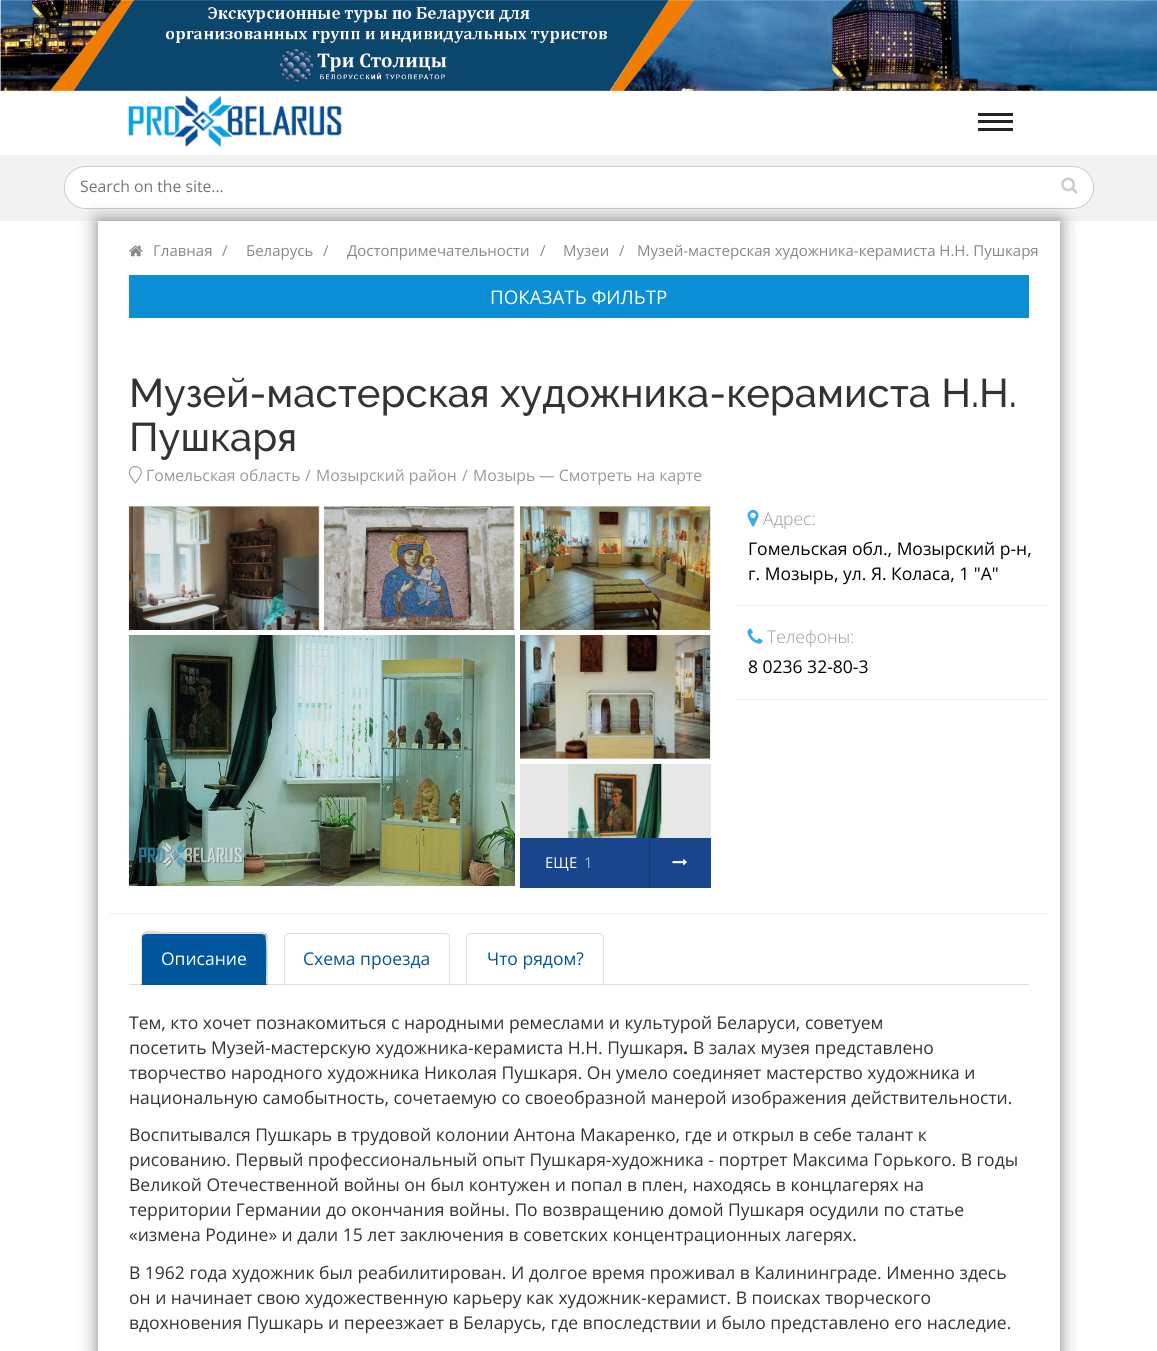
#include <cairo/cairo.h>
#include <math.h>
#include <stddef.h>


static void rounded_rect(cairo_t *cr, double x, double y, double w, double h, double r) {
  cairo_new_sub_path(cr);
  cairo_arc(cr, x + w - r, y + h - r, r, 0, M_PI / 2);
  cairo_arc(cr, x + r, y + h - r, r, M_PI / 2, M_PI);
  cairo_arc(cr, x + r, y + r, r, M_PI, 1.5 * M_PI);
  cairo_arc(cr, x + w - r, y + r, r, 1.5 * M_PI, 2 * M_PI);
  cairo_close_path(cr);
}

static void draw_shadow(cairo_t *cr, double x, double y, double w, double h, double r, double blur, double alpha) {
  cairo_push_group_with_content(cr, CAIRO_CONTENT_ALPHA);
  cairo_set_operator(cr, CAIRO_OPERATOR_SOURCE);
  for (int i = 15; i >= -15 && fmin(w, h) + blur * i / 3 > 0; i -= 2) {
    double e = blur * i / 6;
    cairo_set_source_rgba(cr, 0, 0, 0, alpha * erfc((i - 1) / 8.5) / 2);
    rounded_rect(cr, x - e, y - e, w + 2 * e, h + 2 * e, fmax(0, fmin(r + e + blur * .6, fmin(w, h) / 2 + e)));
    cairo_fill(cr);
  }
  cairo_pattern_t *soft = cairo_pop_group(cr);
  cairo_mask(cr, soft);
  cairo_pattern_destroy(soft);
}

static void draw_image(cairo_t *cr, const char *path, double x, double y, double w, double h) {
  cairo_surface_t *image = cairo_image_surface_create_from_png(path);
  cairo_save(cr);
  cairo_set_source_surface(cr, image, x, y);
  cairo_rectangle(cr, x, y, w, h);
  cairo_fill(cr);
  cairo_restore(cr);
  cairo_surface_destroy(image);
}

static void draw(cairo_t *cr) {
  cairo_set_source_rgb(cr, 1, 1, 1);
  cairo_paint(cr);
  draw_image(cr, "images/1.png", 0, 0, 1157, 91);
  draw_image(cr, "images/2.png", 128, 95, 214, 53);
  cairo_set_source_rgb(cr, 34 / 255.0, 34 / 255.0, 34 / 255.0);
  cairo_rectangle(cr, 978, 113, 35, 3);
  cairo_fill(cr);
  cairo_rectangle(cr, 978, 120, 35, 3);
  cairo_fill(cr);
  cairo_rectangle(cr, 978, 128, 35, 3);
  cairo_fill(cr);
  cairo_set_source_rgb(cr, 242 / 255.0, 242 / 255.0, 242 / 255.0);
  cairo_rectangle(cr, 0, 155, 1157, 66);
  cairo_fill(cr);
  cairo_set_source_rgb(cr, 1, 1, 1);
  rounded_rect(cr, 64.5, 166.5, 1029, 42, 21);
  cairo_fill_preserve(cr);
  cairo_set_source_rgb(cr, 204 / 255.0, 204 / 255.0, 204 / 255.0);
  cairo_set_line_width(cr, 1);
  cairo_stroke(cr);
  draw_image(cr, "images/3.png", 1061, 177, 17, 17);
  cairo_set_source_rgb(cr, 0, 0, 0);
  draw_shadow(cr, 98, 221, 962, 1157, 0, 9, 0.5);
  cairo_set_source_rgb(cr, 1, 1, 1);
  cairo_rectangle(cr, 98, 221, 962, 1130);
  cairo_fill(cr);
  cairo_set_source_rgb(cr, 231 / 255.0, 231 / 255.0, 231 / 255.0);
  cairo_rectangle(cr, 520, 764, 191, 74);
  cairo_fill(cr);
  cairo_rectangle(cr, 520, 635, 191, 124);
  cairo_fill(cr);
  cairo_rectangle(cr, 520, 506, 191, 124);
  cairo_fill(cr);
  cairo_rectangle(cr, 324, 506, 191, 124);
  cairo_fill(cr);
  cairo_rectangle(cr, 129, 506, 191, 124);
  cairo_fill(cr);
  draw_image(cr, "images/4.png", 129, 245, 14, 12);
  cairo_set_source_rgb(cr, 12 / 255.0, 142 / 255.0, 212 / 255.0);
  cairo_rectangle(cr, 129, 275, 900, 43);
  cairo_fill(cr);
  draw_image(cr, "images/5.png", 128, 466, 14, 18);
  cairo_set_source_rgb(cr, 238 / 255.0, 238 / 255.0, 238 / 255.0);
  cairo_rectangle(cr, 110, 913, 938, 1);
  cairo_fill(cr);
  cairo_rectangle(cr, 735, 605, 313, 1);
  cairo_fill(cr);
  draw_image(cr, "images/6.png", 747, 509, 12, 18);
  cairo_rectangle(cr, 735, 699, 313, 1);
  cairo_fill(cr);
  draw_image(cr, "images/7.png", 747, 628, 16, 16);
  draw_image(cr, "images/8.png", 128, 506, 191, 124);
  draw_image(cr, "images/9.png", 323, 506, 191, 124);
  draw_image(cr, "images/10.png", 520, 506, 190, 124);
  draw_image(cr, "images/11.png", 128, 635, 387, 252);
  draw_image(cr, "images/12.png", 520, 635, 190, 124);
  draw_image(cr, "images/13.png", 566, 763, 96, 75);
  cairo_set_source_rgb(cr, 24 / 255.0, 69 / 255.0, 139 / 255.0);
  cairo_rectangle(cr, 520, 838, 191, 50);
  cairo_fill(cr);
  cairo_set_source_rgb(cr, 19 / 255.0, 55 / 255.0, 110 / 255.0);
  cairo_rectangle(cr, 649, 838, 1, 50);
  cairo_fill(cr);
  draw_image(cr, "images/14.png", 672, 859, 15, 7);
  cairo_set_source_rgb(cr, 221 / 255.0, 221 / 255.0, 221 / 255.0);
  cairo_rectangle(cr, 129, 984, 900, 1);
  cairo_fill(cr);
  cairo_set_source_rgb(cr, 0, 86 / 255.0, 157 / 255.0);
  cairo_new_path(cr);
  cairo_move_to(cr, 146, 933);
  cairo_line_to(cr, 263, 933);
  cairo_curve_to(cr, 266, 933, 268, 935, 268, 938);
  cairo_line_to(cr, 268, 985);
  cairo_line_to(cr, 141, 985);
  cairo_line_to(cr, 141, 938);
  cairo_curve_to(cr, 141, 935, 143, 933, 146, 933);
  cairo_close_path(cr);
  cairo_fill(cr);
  cairo_set_source_rgb(cr, 221 / 255.0, 221 / 255.0, 221 / 255.0);
  cairo_new_path(cr);
  cairo_move_to(cr, 146, 934);
  cairo_line_to(cr, 143, 935);
  cairo_line_to(cr, 142, 934);
  cairo_curve_to(cr, 147, 928, 157, 932, 164, 932);
  cairo_line_to(cr, 264, 932);
  cairo_line_to(cr, 266, 934);
  cairo_line_to(cr, 265, 935);
  cairo_line_to(cr, 262, 934);
  cairo_close_path(cr);
  cairo_fill(cr);
  cairo_new_path(cr);
  cairo_move_to(cr, 268, 936);
  cairo_line_to(cr, 268, 985);
  cairo_line_to(cr, 266, 984);
  cairo_curve_to(cr, 266, 978, 267, 937, 265, 935);
  cairo_line_to(cr, 266, 934);
  cairo_close_path(cr);
  cairo_fill(cr);
  cairo_new_path(cr);
  cairo_move_to(cr, 141, 985);
  cairo_line_to(cr, 141, 936);
  cairo_line_to(cr, 142, 934);
  cairo_line_to(cr, 143, 935);
  cairo_line_to(cr, 142, 937);
  cairo_line_to(cr, 142, 984);
  cairo_close_path(cr);
  cairo_fill(cr);
  cairo_new_path(cr);
  cairo_move_to(cr, 289, 933.5);
  cairo_line_to(cr, 445, 933.5);
  cairo_curve_to(cr, 447.5, 933.5, 449.5, 935.5, 449.5, 938);
  cairo_line_to(cr, 449.5, 984.5);
  cairo_line_to(cr, 284.5, 984.5);
  cairo_line_to(cr, 284.5, 938);
  cairo_curve_to(cr, 284.5, 935.5, 286.5, 933.5, 289, 933.5);
  cairo_close_path(cr);
  cairo_set_source_rgb(cr, 222 / 255.0, 222 / 255.0, 222 / 255.0);
  cairo_stroke(cr);
  cairo_new_path(cr);
  cairo_move_to(cr, 471, 933.5);
  cairo_line_to(cr, 599, 933.5);
  cairo_curve_to(cr, 601.5, 933.5, 603.5, 935.5, 603.5, 938);
  cairo_line_to(cr, 603.5, 984.5);
  cairo_line_to(cr, 466.5, 984.5);
  cairo_line_to(cr, 466.5, 938);
  cairo_curve_to(cr, 466.5, 935.5, 468.5, 933.5, 471, 933.5);
  cairo_close_path(cr);
  cairo_stroke(cr);
  cairo_select_font_face(cr, "Open Sans", CAIRO_FONT_SLANT_NORMAL, CAIRO_FONT_WEIGHT_NORMAL);
  cairo_set_font_size(cr, 15.75);
  cairo_set_source_rgb(cr, 117 / 255.0, 117 / 255.0, 117 / 255.0);
  cairo_move_to(cr, 80, 192);
  cairo_show_text(cr, "Search on the site...");
  cairo_set_font_size(cr, 15);
  cairo_set_source_rgb(cr, 136 / 255.0, 136 / 255.0, 136 / 255.0);
  cairo_move_to(cr, 153, 256);
  cairo_show_text(cr, "Главная");
  cairo_move_to(cr, 222, 256);
  cairo_show_text(cr, "/");
  cairo_move_to(cr, 246, 256);
  cairo_show_text(cr, "Беларусь");
  cairo_move_to(cr, 323, 256);
  cairo_show_text(cr, "/");
  cairo_move_to(cr, 347, 256);
  cairo_show_text(cr, "Достопримечательности");
  cairo_move_to(cr, 540, 256);
  cairo_show_text(cr, "/");
  cairo_move_to(cr, 563, 256);
  cairo_show_text(cr, "Музеи");
  cairo_move_to(cr, 619, 256);
  cairo_show_text(cr, "/");
  cairo_move_to(cr, 637, 256);
  cairo_show_text(cr, "Музей-мастерская художника-керамиста Н.Н. Пушкаря");
  cairo_set_font_size(cr, 18.75);
  cairo_set_source_rgb(cr, 1, 1, 1);
  cairo_move_to(cr, 490, 304);
  cairo_show_text(cr, "ПОКАЗАТЬ ФИЛЬТР");
  cairo_select_font_face(cr, "Raleway Medium", CAIRO_FONT_SLANT_NORMAL, CAIRO_FONT_WEIGHT_NORMAL);
  cairo_set_font_size(cr, 40);
  cairo_set_source_rgb(cr, 51 / 255.0, 51 / 255.0, 51 / 255.0);
  cairo_move_to(cr, 129, 407);
  cairo_show_text(cr, "Музей-мастерская художника-керамиста Н.Н.");
  cairo_move_to(cr, 129, 451);
  cairo_show_text(cr, "Пушкаря");
  cairo_select_font_face(cr, "Open Sans", CAIRO_FONT_SLANT_NORMAL, CAIRO_FONT_WEIGHT_NORMAL);
  cairo_set_font_size(cr, 15.75);
  cairo_set_source_rgb(cr, 153 / 255.0, 153 / 255.0, 153 / 255.0);
  cairo_move_to(cr, 146, 481);
  cairo_show_text(cr, "Гомельская область");
  cairo_move_to(cr, 305, 481);
  cairo_show_text(cr, "/");
  cairo_move_to(cr, 316, 481);
  cairo_show_text(cr, "Мозырский район");
  cairo_move_to(cr, 462, 481);
  cairo_show_text(cr, "/");
  cairo_move_to(cr, 473, 481);
  cairo_show_text(cr, "Мозырь");
  cairo_move_to(cr, 539, 481);
  cairo_show_text(cr, "— Смотреть на карте");
  cairo_select_font_face(cr, "Open Sans Light", CAIRO_FONT_SLANT_NORMAL, CAIRO_FONT_WEIGHT_NORMAL);
  cairo_set_font_size(cr, 17.5);
  cairo_move_to(cr, 763, 525);
  cairo_show_text(cr, "Адрес:");
  cairo_select_font_face(cr, "Open Sans", CAIRO_FONT_SLANT_NORMAL, CAIRO_FONT_WEIGHT_NORMAL);
  cairo_set_source_rgb(cr, 0, 0, 0);
  cairo_move_to(cr, 748, 555);
  cairo_show_text(cr, "Гомельская обл., Мозырский р-н,");
  cairo_move_to(cr, 748, 580);
  cairo_show_text(cr, "г. Мозырь, ул. Я. Коласа, 1 \"А\"");
  cairo_select_font_face(cr, "Open Sans Light", CAIRO_FONT_SLANT_NORMAL, CAIRO_FONT_WEIGHT_NORMAL);
  cairo_set_source_rgb(cr, 153 / 255.0, 153 / 255.0, 153 / 255.0);
  cairo_move_to(cr, 767, 643);
  cairo_show_text(cr, "Телефоны:");
  cairo_select_font_face(cr, "Open Sans", CAIRO_FONT_SLANT_NORMAL, CAIRO_FONT_WEIGHT_NORMAL);
  cairo_set_source_rgb(cr, 0, 0, 0);
  cairo_move_to(cr, 748, 673);
  cairo_show_text(cr, "8 0236 32-80-3");
  cairo_set_font_size(cr, 15);
  cairo_set_source_rgb(cr, 1, 1, 1);
  cairo_move_to(cr, 545, 868);
  cairo_show_text(cr, "ЕЩЕ");
  cairo_set_source_rgb(cr, 165 / 255.0, 182 / 255.0, 210 / 255.0);
  cairo_move_to(cr, 584, 868);
  cairo_show_text(cr, "1");
  cairo_set_font_size(cr, 17.5);
  cairo_set_source_rgb(cr, 1, 1, 1);
  cairo_move_to(cr, 161, 965);
  cairo_show_text(cr, "Описание");
  cairo_set_source_rgb(cr, 0, 84 / 255.0, 154 / 255.0);
  cairo_move_to(cr, 303, 965);
  cairo_show_text(cr, "Схема проезда");
  cairo_move_to(cr, 487, 965);
  cairo_show_text(cr, "Что рядом?");
  cairo_set_source_rgb(cr, 51 / 255.0, 51 / 255.0, 51 / 255.0);
  cairo_move_to(cr, 129, 1029);
  cairo_show_text(cr, "Тем, кто хочет познакомиться с народными ремеслами и культурой Беларуси, советуем");
  cairo_move_to(cr, 129, 1054);
  cairo_show_text(cr, "посетить Музей-мастерскую художника-керамиста Н.Н. Пушкаря");
  cairo_select_font_face(cr, "Open Sans", CAIRO_FONT_SLANT_NORMAL, CAIRO_FONT_WEIGHT_BOLD);
  cairo_move_to(cr, 683, 1054);
  cairo_show_text(cr, ".");
  cairo_select_font_face(cr, "Open Sans", CAIRO_FONT_SLANT_NORMAL, CAIRO_FONT_WEIGHT_NORMAL);
  cairo_move_to(cr, 693, 1054);
  cairo_show_text(cr, "В залах музея представлено");
  cairo_move_to(cr, 129, 1079);
  cairo_show_text(cr, "творчество народного художника Николая Пушкаря. Он умело соединяет мастерство художника и");
  cairo_move_to(cr, 129, 1104);
  cairo_show_text(cr, "национальную самобытность, сочетаемую со своеобразной манерой изображения действительности.");
  cairo_move_to(cr, 129, 1141);
  cairo_show_text(cr, "Воспитывался Пушкарь в трудовой колонии Антона Макаренко, где и открыл в себе талант к");
  cairo_move_to(cr, 129, 1166);
  cairo_show_text(cr, "рисованию. Первый профессиональный опыт Пушкаря-художника - портрет Максима Горького. В годы");
  cairo_move_to(cr, 129, 1191);
  cairo_show_text(cr, "Великой Отечественной войны он был контужен и попал в плен, находясь в концлагерях на");
  cairo_move_to(cr, 129, 1216);
  cairo_show_text(cr, "территории Германии до окончания войны. По возвращению домой Пушкаря осудили по статье");
  cairo_move_to(cr, 129, 1241);
  cairo_show_text(cr, "«измена Родине» и дали 15 лет заключения в советских концентрационных лагерях.");
  cairo_move_to(cr, 129, 1279);
  cairo_show_text(cr, "В 1962 года художник был реабилитирован. И долгое время проживал в Калининграде. Именно здесь");
  cairo_move_to(cr, 129, 1304);
  cairo_show_text(cr, "он и начинает свою художественную карьеру как художник-керамист. В поисках творческого");
  cairo_move_to(cr, 129, 1329);
  cairo_show_text(cr, "вдохновения Пушкарь и переезжает в Беларусь, где впоследствии и было представлено его наследие.");
}

int main(void) {
  cairo_surface_t *surface = cairo_image_surface_create(CAIRO_FORMAT_RGB24, 1157, 1351);
  cairo_t *cr = cairo_create(surface);
  cairo_font_options_t *options = cairo_font_options_create();
  cairo_font_options_set_hint_metrics(options, CAIRO_HINT_METRICS_OFF);
  cairo_font_options_set_hint_style(options, CAIRO_HINT_STYLE_NONE);
  cairo_set_font_options(cr, options);
  cairo_set_miter_limit(cr, 4);
  draw(cr);
  cairo_surface_write_to_png(surface, "out.png");
  cairo_font_options_destroy(options);
  cairo_destroy(cr);
  cairo_surface_destroy(surface);
  return 0;
}
